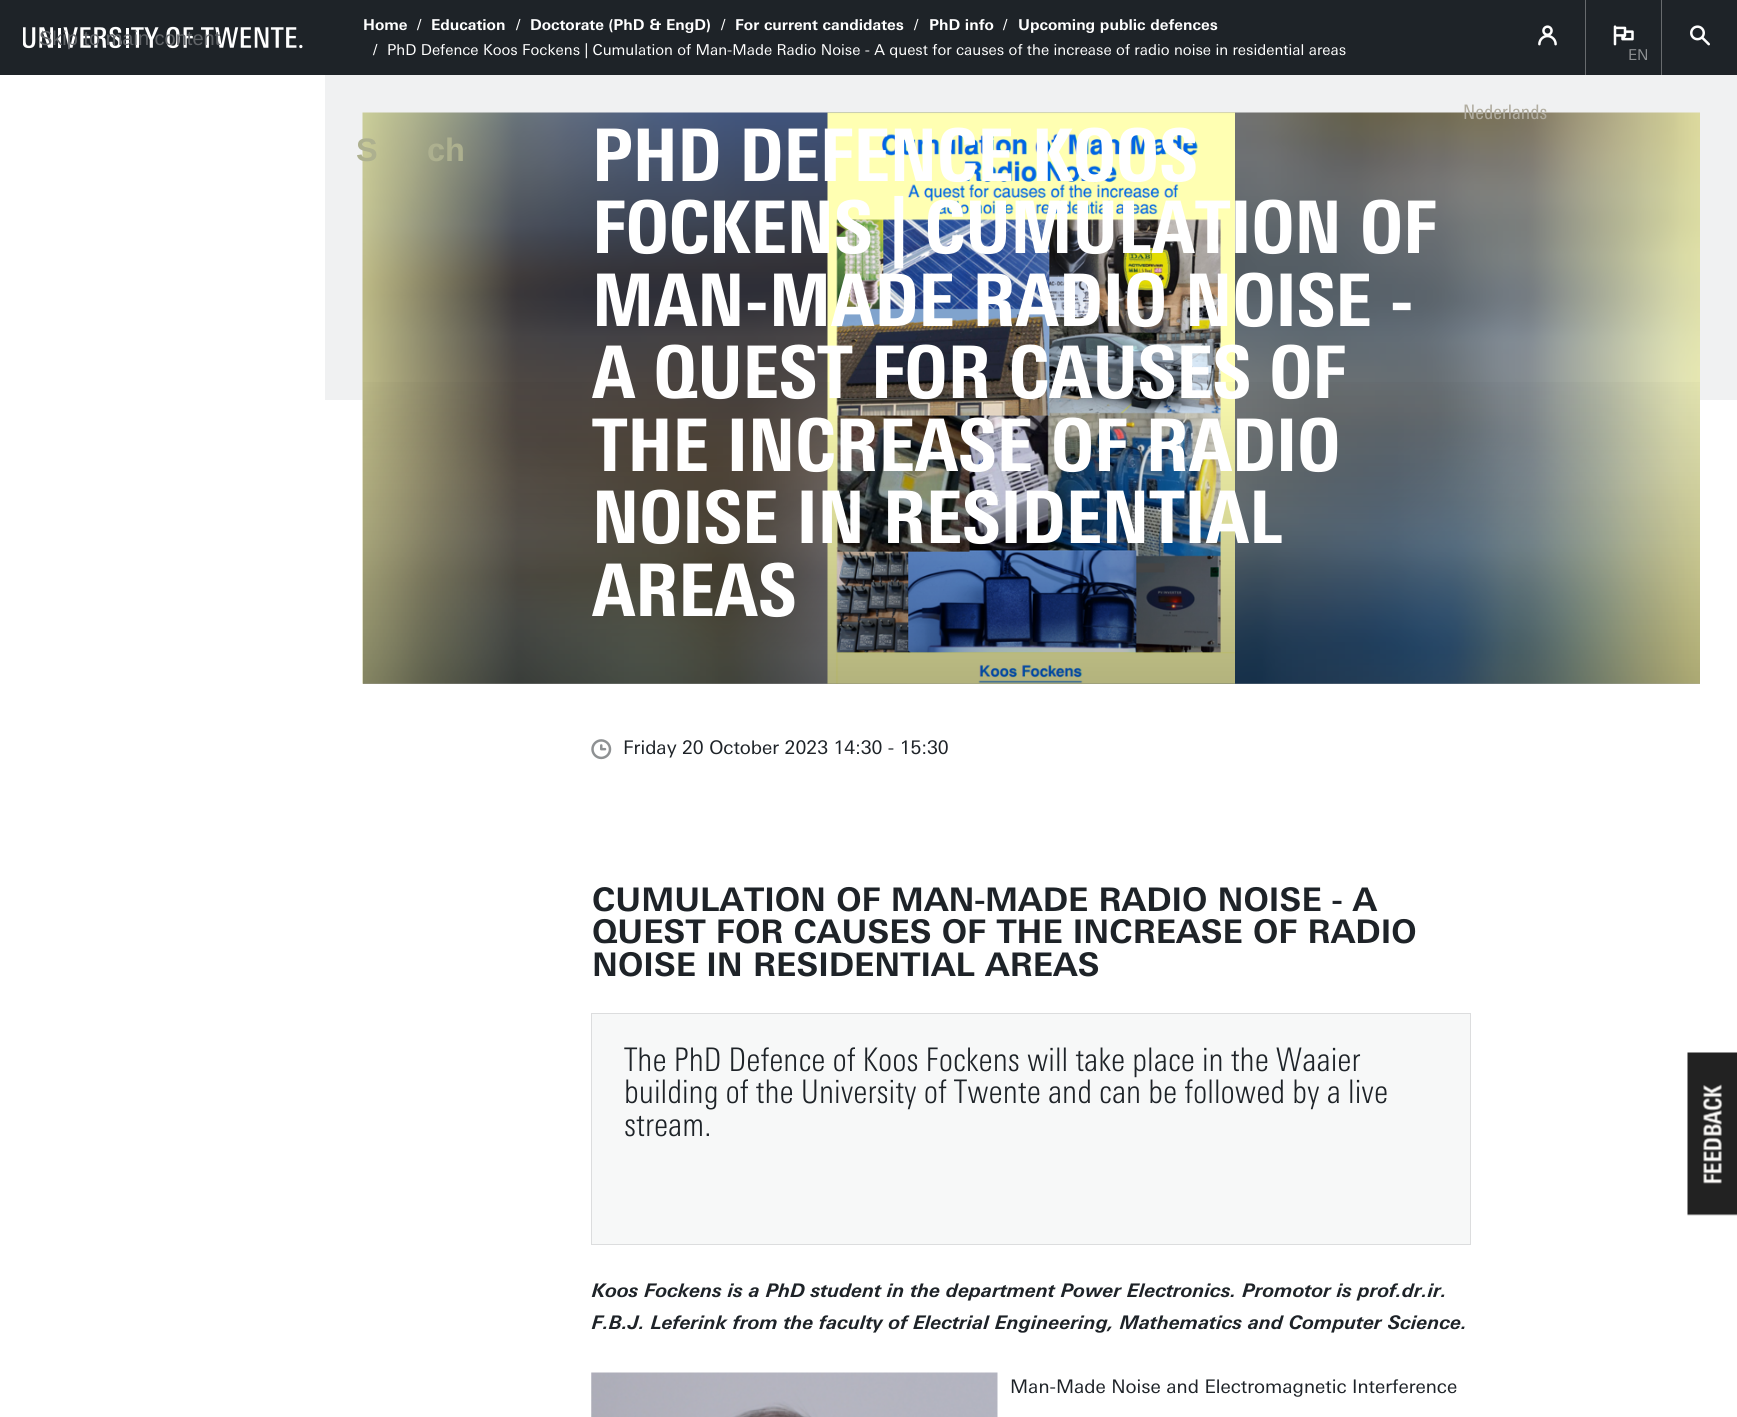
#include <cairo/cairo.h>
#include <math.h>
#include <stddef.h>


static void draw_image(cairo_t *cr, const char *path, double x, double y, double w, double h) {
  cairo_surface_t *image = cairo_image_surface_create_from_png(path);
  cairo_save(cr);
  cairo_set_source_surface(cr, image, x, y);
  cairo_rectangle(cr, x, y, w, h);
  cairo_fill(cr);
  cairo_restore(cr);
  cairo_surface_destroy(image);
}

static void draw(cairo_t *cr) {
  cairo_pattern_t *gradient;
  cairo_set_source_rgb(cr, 1, 1, 1);
  cairo_paint(cr);
  cairo_set_source_rgb(cr, 30 / 255.0, 35 / 255.0, 40 / 255.0);
  cairo_rectangle(cr, 0, 0, 1737, 75);
  cairo_fill(cr);
  draw_image(cr, "images/1.png", 23, 26, 280, 23);
  draw_image(cr, "images/2.png", 1538, 25, 19, 21);
  cairo_set_source_rgb(cr, 104 / 255.0, 107 / 255.0, 110 / 255.0);
  cairo_rectangle(cr, 1661, 0, 1, 75);
  cairo_fill(cr);
  draw_image(cr, "images/3.png", 1690, 25, 20, 21);
  cairo_rectangle(cr, 1585, 0, 1, 75);
  cairo_fill(cr);
  draw_image(cr, "images/4.png", 1613, 25, 21, 21);
  cairo_set_source_rgb(cr, 240 / 255.0, 241 / 255.0, 242 / 255.0);
  cairo_rectangle(cr, 325, 75, 1412, 325);
  cairo_fill(cr);
  draw_image(cr, "images/5.png", 362, 112, 1338, 572);
  draw_image(cr, "images/6.png", 827, 112, 408, 572);
  gradient = cairo_pattern_create_linear(1031, 359, 1031, 684);
  cairo_pattern_add_color_stop_rgba(gradient, 0, 0, 0, 0, 0);
  cairo_pattern_add_color_stop_rgba(gradient, 1, 0, 0, 0, 0.3);
  cairo_set_source(cr, gradient);
  cairo_pattern_destroy(gradient);
  cairo_rectangle(cr, 363, 382, 1337, 302);
  cairo_fill(cr);
  draw_image(cr, "images/7.png", 591, 739, 21, 21);
  cairo_set_source_rgb(cr, 247 / 255.0, 248 / 255.0, 248 / 255.0);
  cairo_rectangle(cr, 591.5, 1013.5, 879, 231);
  cairo_fill_preserve(cr);
  cairo_set_source_rgb(cr, 220 / 255.0, 221 / 255.0, 222 / 255.0);
  cairo_set_line_width(cr, 1);
  cairo_stroke(cr);
  draw_image(cr, "images/8.png", 591, 1372, 407, 45);
  draw_image(cr, "images/9.png", 1687, 1052, 50, 164);
  cairo_select_font_face(cr, "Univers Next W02", CAIRO_FONT_SLANT_NORMAL, CAIRO_FONT_WEIGHT_BOLD);
  cairo_set_font_size(cr, 15);
  cairo_set_source_rgb(cr, 1, 1, 1);
  cairo_move_to(cr, 363, 30);
  cairo_show_text(cr, "Home");
  cairo_select_font_face(cr, "Univers Next W02", CAIRO_FONT_SLANT_NORMAL, CAIRO_FONT_WEIGHT_NORMAL);
  cairo_move_to(cr, 417, 30);
  cairo_show_text(cr, "/");
  cairo_select_font_face(cr, "Univers Next W02", CAIRO_FONT_SLANT_NORMAL, CAIRO_FONT_WEIGHT_BOLD);
  cairo_move_to(cr, 431, 30);
  cairo_show_text(cr, "Education");
  cairo_select_font_face(cr, "Univers Next W02", CAIRO_FONT_SLANT_NORMAL, CAIRO_FONT_WEIGHT_NORMAL);
  cairo_move_to(cr, 516, 30);
  cairo_show_text(cr, "/");
  cairo_select_font_face(cr, "Univers Next W02", CAIRO_FONT_SLANT_NORMAL, CAIRO_FONT_WEIGHT_BOLD);
  cairo_move_to(cr, 530, 30);
  cairo_show_text(cr, "Doctorate (PhD & EngD)");
  cairo_select_font_face(cr, "Univers Next W02", CAIRO_FONT_SLANT_NORMAL, CAIRO_FONT_WEIGHT_NORMAL);
  cairo_move_to(cr, 721, 30);
  cairo_show_text(cr, "/");
  cairo_select_font_face(cr, "Univers Next W02", CAIRO_FONT_SLANT_NORMAL, CAIRO_FONT_WEIGHT_BOLD);
  cairo_move_to(cr, 735, 30);
  cairo_show_text(cr, "For current candidates");
  cairo_select_font_face(cr, "Univers Next W02", CAIRO_FONT_SLANT_NORMAL, CAIRO_FONT_WEIGHT_NORMAL);
  cairo_move_to(cr, 914, 30);
  cairo_show_text(cr, "/");
  cairo_select_font_face(cr, "Univers Next W02", CAIRO_FONT_SLANT_NORMAL, CAIRO_FONT_WEIGHT_BOLD);
  cairo_move_to(cr, 929, 30);
  cairo_show_text(cr, "PhD info");
  cairo_select_font_face(cr, "Univers Next W02", CAIRO_FONT_SLANT_NORMAL, CAIRO_FONT_WEIGHT_NORMAL);
  cairo_move_to(cr, 1003, 30);
  cairo_show_text(cr, "/");
  cairo_select_font_face(cr, "Univers Next W02", CAIRO_FONT_SLANT_NORMAL, CAIRO_FONT_WEIGHT_BOLD);
  cairo_move_to(cr, 1018, 30);
  cairo_show_text(cr, "Upcoming public defences");
  cairo_select_font_face(cr, "Univers Next W02", CAIRO_FONT_SLANT_NORMAL, CAIRO_FONT_WEIGHT_NORMAL);
  cairo_move_to(cr, 373, 55);
  cairo_show_text(cr, "/");
  cairo_move_to(cr, 387, 55);
  cairo_show_text(cr, "PhD Defence Koos Fockens | Cumulation of Man-Made Radio Noise - A quest for causes of the increase of radio noise in residential areas");
  cairo_set_source_rgb(cr, 142 / 255.0, 145 / 255.0, 147 / 255.0);
  cairo_move_to(cr, 1628, 60);
  cairo_show_text(cr, "EN");
  cairo_select_font_face(cr, "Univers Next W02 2", CAIRO_FONT_SLANT_NORMAL, CAIRO_FONT_WEIGHT_NORMAL);
  cairo_set_font_size(cr, 20);
  cairo_set_source_rgb(cr, 176 / 255.0, 172 / 255.0, 159 / 255.0);
  cairo_move_to(cr, 1463, 119);
  cairo_show_text(cr, "Nederlands");
  cairo_select_font_face(cr, "Liberation Sans", CAIRO_FONT_SLANT_NORMAL, CAIRO_FONT_WEIGHT_BOLD);
  cairo_set_font_size(cr, 32.5);
  cairo_set_source_rgb(cr, 173 / 255.0, 176 / 255.0, 143 / 255.0);
  cairo_move_to(cr, 356, 161);
  cairo_show_text(cr, "S");
  cairo_move_to(cr, 427, 161);
  cairo_show_text(cr, "ch");
  cairo_select_font_face(cr, "Univers Next W02 Black", CAIRO_FONT_SLANT_NORMAL, CAIRO_FONT_WEIGHT_NORMAL);
  cairo_set_font_size(cr, 72.5);
  cairo_set_source_rgb(cr, 1, 1, 1);
  cairo_move_to(cr, 592, 181);
  cairo_show_text(cr, "PHD DEFENCE KOOS");
  cairo_move_to(cr, 592, 253);
  cairo_show_text(cr, "FOCKENS | CUMULATION OF");
  cairo_move_to(cr, 592, 326);
  cairo_show_text(cr, "MAN-MADE RADIO NOISE -");
  cairo_move_to(cr, 592, 398);
  cairo_show_text(cr, "A QUEST FOR CAUSES OF");
  cairo_move_to(cr, 592, 471);
  cairo_show_text(cr, "THE INCREASE OF RADIO");
  cairo_move_to(cr, 592, 543);
  cairo_show_text(cr, "NOISE IN RESIDENTIAL");
  cairo_move_to(cr, 592, 616);
  cairo_show_text(cr, "AREAS");
  cairo_select_font_face(cr, "Univers Next W02", CAIRO_FONT_SLANT_NORMAL, CAIRO_FONT_WEIGHT_NORMAL);
  cairo_set_font_size(cr, 18.75);
  cairo_set_source_rgb(cr, 30 / 255.0, 35 / 255.0, 40 / 255.0);
  cairo_move_to(cr, 623, 754);
  cairo_show_text(cr, "Friday 20 October 2023 14:30 - 15:30");
  cairo_select_font_face(cr, "Univers Next W02", CAIRO_FONT_SLANT_NORMAL, CAIRO_FONT_WEIGHT_BOLD);
  cairo_set_font_size(cr, 32.5);
  cairo_move_to(cr, 592, 911);
  cairo_show_text(cr, "CUMULATION OF MAN-MADE RADIO NOISE - A");
  cairo_move_to(cr, 592, 943);
  cairo_show_text(cr, "QUEST FOR CAUSES OF THE INCREASE OF RADIO");
  cairo_move_to(cr, 592, 976);
  cairo_show_text(cr, "NOISE IN RESIDENTIAL AREAS");
  cairo_select_font_face(cr, "Univers Next W02 Light", CAIRO_FONT_SLANT_NORMAL, CAIRO_FONT_WEIGHT_NORMAL);
  cairo_move_to(cr, 624, 1071);
  cairo_show_text(cr, "The PhD Defence of Koos Fockens will take place in the Waaier");
  cairo_move_to(cr, 624, 1103);
  cairo_show_text(cr, "building of the University of Twente and can be followed by a live");
  cairo_move_to(cr, 624, 1136);
  cairo_show_text(cr, "stream.");
  cairo_select_font_face(cr, "Univers Next W02", CAIRO_FONT_SLANT_ITALIC, CAIRO_FONT_WEIGHT_BOLD);
  cairo_set_font_size(cr, 18.75);
  cairo_move_to(cr, 592, 1297);
  cairo_show_text(cr, "Koos Fockens is a PhD student in the department Power Electronics. Promotor is prof.dr.ir.");
  cairo_move_to(cr, 592, 1329);
  cairo_show_text(cr, "F.B.J. Leferink from the faculty of Electrial Engineering, Mathematics and Computer Science.");
  cairo_select_font_face(cr, "Univers Next W02", CAIRO_FONT_SLANT_NORMAL, CAIRO_FONT_WEIGHT_NORMAL);
  cairo_move_to(cr, 1010, 1393);
  cairo_show_text(cr, "Man-Made Noise and Electromagnetic Interference");
  cairo_select_font_face(cr, "Liberation Sans", CAIRO_FONT_SLANT_NORMAL, CAIRO_FONT_WEIGHT_NORMAL);
  cairo_set_font_size(cr, 20);
  cairo_set_source_rgb(cr, 97 / 255.0, 100 / 255.0, 104 / 255.0);
  cairo_move_to(cr, 39, 45);
  cairo_show_text(cr, "Skip to main content");
}

int main(void) {
  cairo_surface_t *surface = cairo_image_surface_create(CAIRO_FORMAT_RGB24, 1737, 1417);
  cairo_t *cr = cairo_create(surface);
  cairo_font_options_t *options = cairo_font_options_create();
  cairo_font_options_set_hint_metrics(options, CAIRO_HINT_METRICS_OFF);
  cairo_font_options_set_hint_style(options, CAIRO_HINT_STYLE_NONE);
  cairo_set_font_options(cr, options);
  cairo_set_miter_limit(cr, 4);
  draw(cr);
  cairo_surface_write_to_png(surface, "out.png");
  cairo_font_options_destroy(options);
  cairo_destroy(cr);
  cairo_surface_destroy(surface);
  return 0;
}
